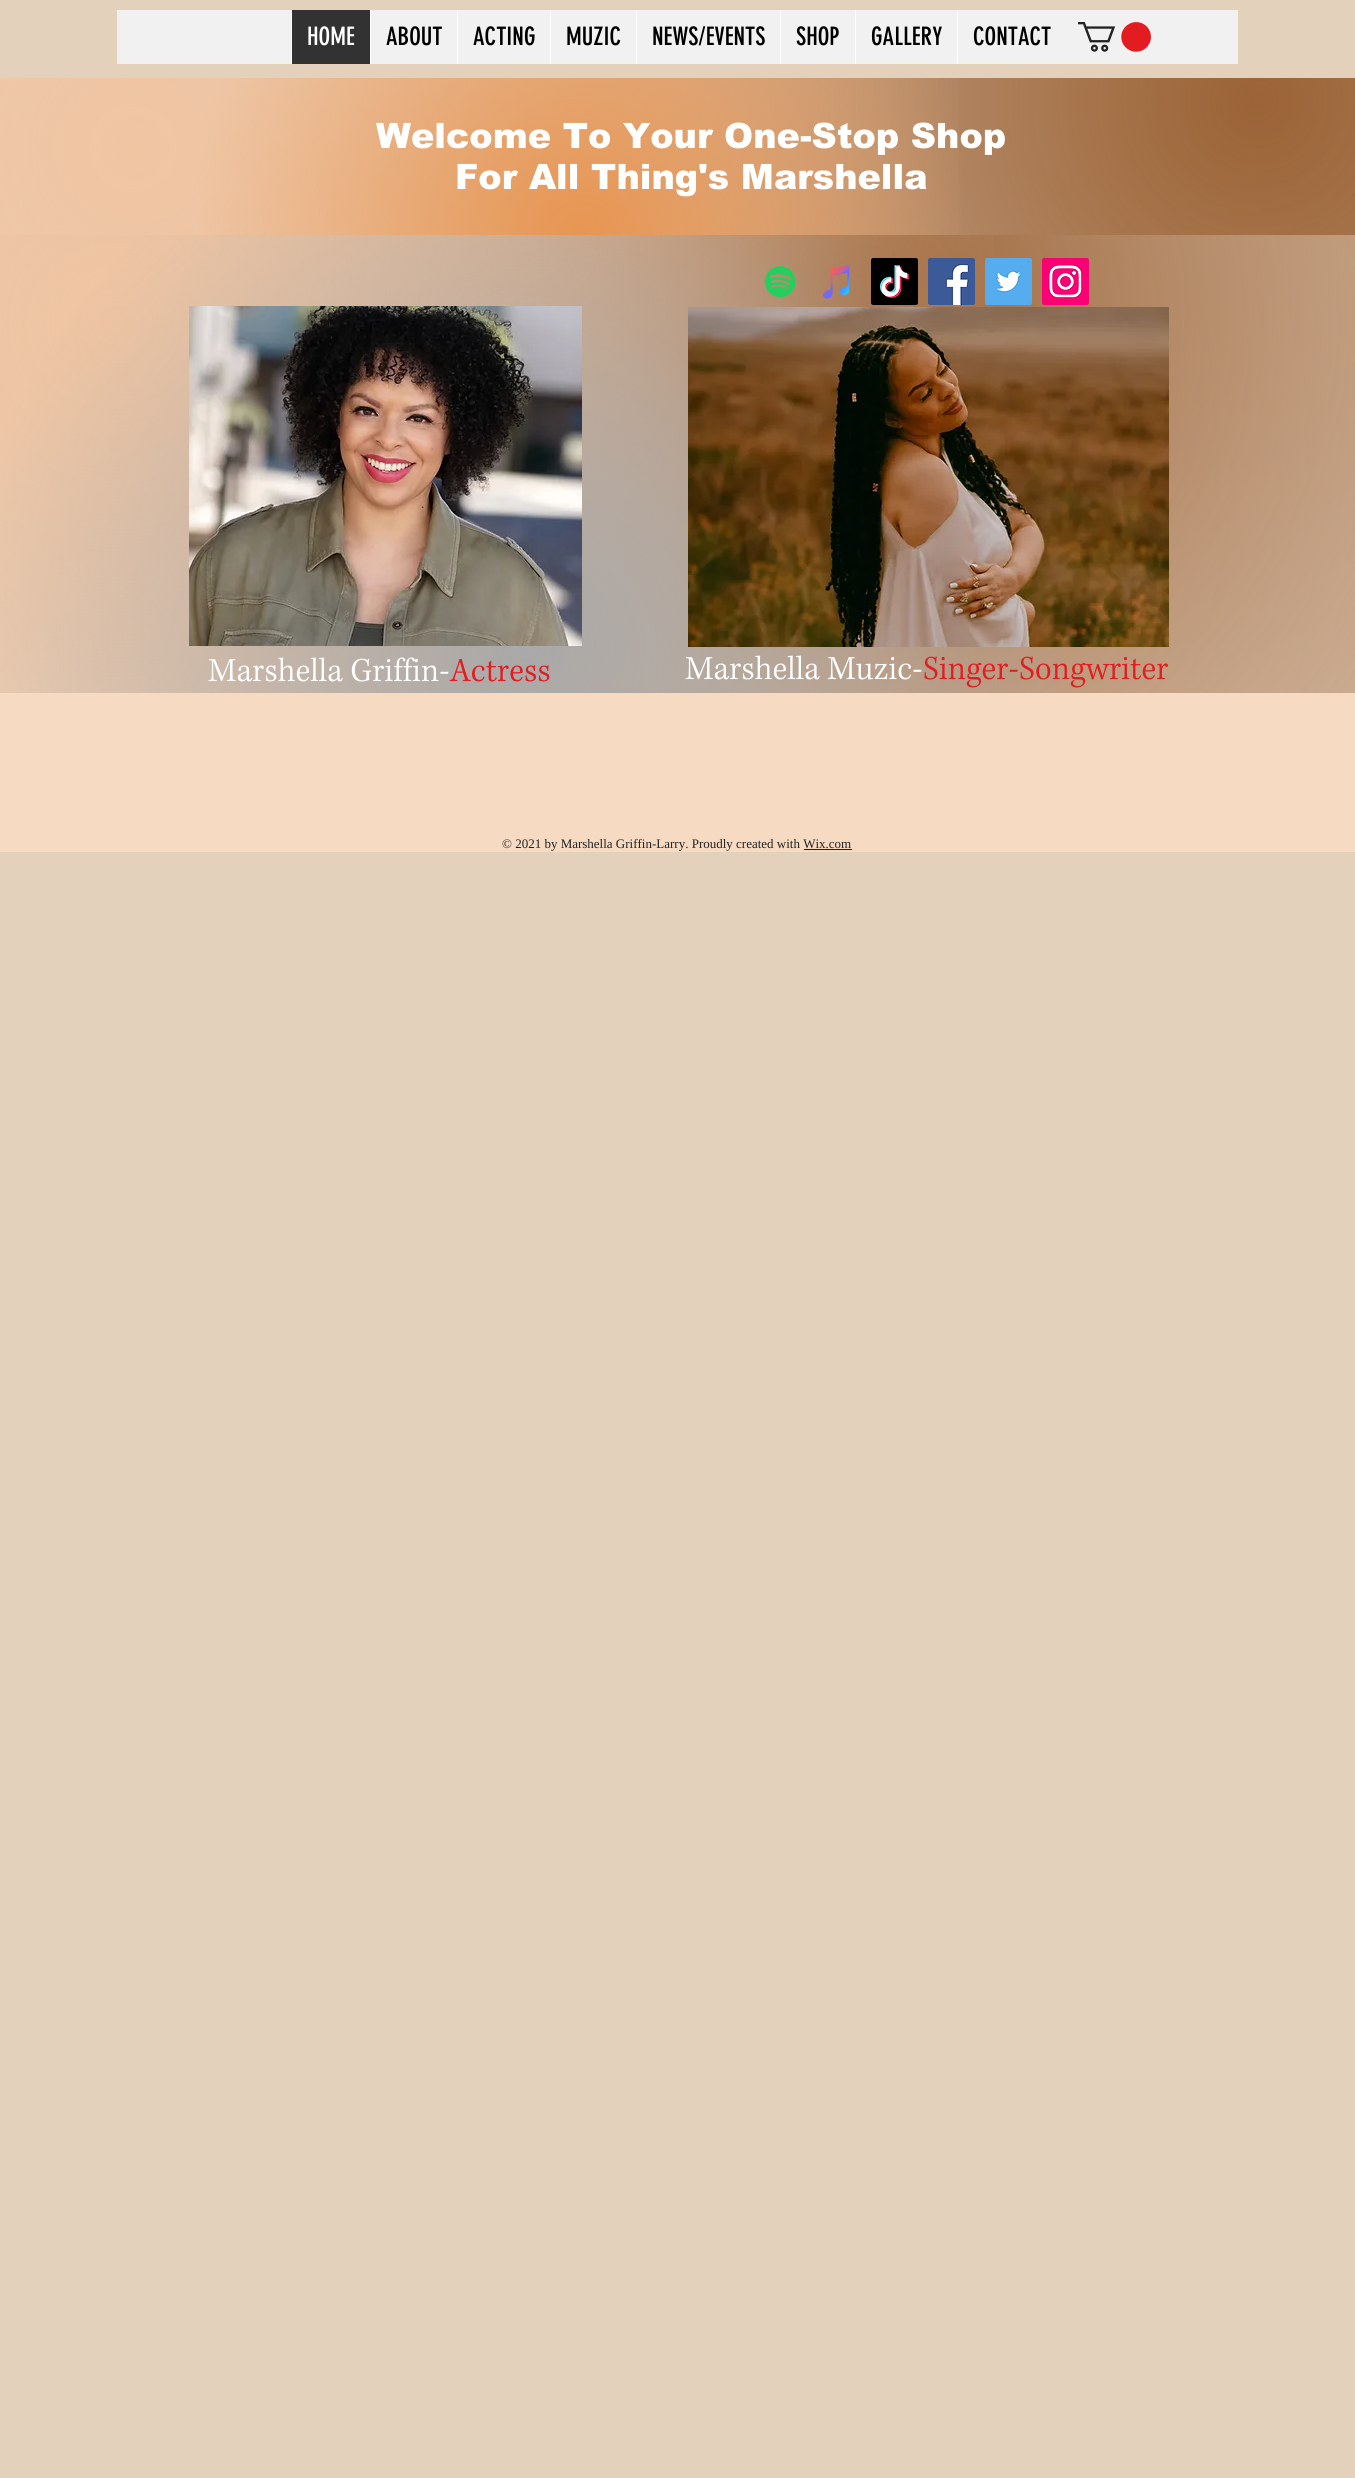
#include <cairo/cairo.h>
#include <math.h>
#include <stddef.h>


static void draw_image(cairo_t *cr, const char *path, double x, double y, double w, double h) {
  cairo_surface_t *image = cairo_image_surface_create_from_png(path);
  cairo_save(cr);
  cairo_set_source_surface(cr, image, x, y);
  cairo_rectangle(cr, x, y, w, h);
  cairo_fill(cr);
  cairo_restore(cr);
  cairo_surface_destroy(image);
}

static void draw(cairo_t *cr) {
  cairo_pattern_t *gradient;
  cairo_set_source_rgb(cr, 227 / 255.0, 209 / 255.0, 188 / 255.0);
  cairo_paint(cr);
  cairo_set_source_rgb(cr, 241 / 255.0, 241 / 255.0, 241 / 255.0);
  cairo_rectangle(cr, 117, 10, 1121, 54);
  cairo_fill(cr);
  cairo_set_source_rgb(cr, 50 / 255.0, 50 / 255.0, 50 / 255.0);
  cairo_rectangle(cr, 292, 10, 78, 54);
  cairo_fill(cr);
  cairo_set_source_rgb(cr, 1, 1, 1);
  cairo_rectangle(cr, 291, 10, 1, 54);
  cairo_fill(cr);
  cairo_rectangle(cr, 370, 10, 1, 54);
  cairo_fill(cr);
  cairo_rectangle(cr, 457, 10, 1, 54);
  cairo_fill(cr);
  cairo_rectangle(cr, 550, 10, 1, 54);
  cairo_fill(cr);
  cairo_rectangle(cr, 636, 10, 1, 54);
  cairo_fill(cr);
  cairo_rectangle(cr, 780, 10, 1, 54);
  cairo_fill(cr);
  cairo_rectangle(cr, 855, 10, 1, 54);
  cairo_fill(cr);
  cairo_rectangle(cr, 957, 10, 1, 54);
  cairo_fill(cr);
  draw_image(cr, "images/1.png", 1078, 22, 73, 30);
  gradient = cairo_pattern_create_radial(663, 156, 0, 663, 156, 697);
  cairo_pattern_add_color_stop_rgba(gradient, 0, 1, 1, 1, 1);
  cairo_pattern_add_color_stop_rgba(gradient, 1, 228 / 255.0, 208 / 255.0, 188 / 255.0, 1);
  cairo_set_source(cr, gradient);
  cairo_pattern_destroy(gradient);
  cairo_rectangle(cr, 0, 78, 1334, 157);
  cairo_fill(cr);
  gradient = cairo_pattern_create_radial(1257, 101, 0, 1257, 101, 1264);
  cairo_pattern_add_color_stop_rgba(gradient, 0, 155 / 255.0, 99 / 255.0, 54 / 255.0, 1);
  cairo_pattern_add_color_stop_rgba(gradient, 1, 155 / 255.0, 99 / 255.0, 54 / 255.0, 0);
  cairo_set_source(cr, gradient);
  cairo_pattern_destroy(gradient);
  cairo_rectangle(cr, 22, 78, 1333, 157);
  cairo_fill(cr);
  gradient = cairo_pattern_create_radial(135, 148, 0, 135, 148, 1223);
  cairo_pattern_add_color_stop_rgba(gradient, 0, 240 / 255.0, 197 / 255.0, 162 / 255.0, 1);
  cairo_pattern_add_color_stop_rgba(gradient, 0.7, 240 / 255.0, 197 / 255.0, 162 / 255.0, 0);
  cairo_set_source(cr, gradient);
  cairo_pattern_destroy(gradient);
  cairo_rectangle(cr, 0, 78, 959, 157);
  cairo_fill(cr);
  gradient = cairo_pattern_create_radial(582, 235, 0, 582, 235, 788);
  cairo_pattern_add_color_stop_rgba(gradient, 0, 232 / 255.0, 149 / 255.0, 81 / 255.0, 1);
  cairo_pattern_add_color_stop_rgba(gradient, 0.5, 232 / 255.0, 149 / 255.0, 81 / 255.0, 0);
  cairo_set_source(cr, gradient);
  cairo_pattern_destroy(gradient);
  cairo_rectangle(cr, 199, 78, 763, 157);
  cairo_fill(cr);
  gradient = cairo_pattern_create_radial(663, 462, 0, 663, 462, 730);
  cairo_pattern_add_color_stop_rgba(gradient, 0, 1, 1, 1, 1);
  cairo_pattern_add_color_stop_rgba(gradient, 1, 226 / 255.0, 208 / 255.0, 190 / 255.0, 1);
  cairo_set_source(cr, gradient);
  cairo_pattern_destroy(gradient);
  cairo_rectangle(cr, 0, 235, 1355, 458);
  cairo_fill(cr);
  gradient = cairo_pattern_create_radial(865, 311, 0, 865, 311, 946);
  cairo_pattern_add_color_stop_rgba(gradient, 0, 155 / 255.0, 99 / 255.0, 54 / 255.0, 1);
  cairo_pattern_add_color_stop_rgba(gradient, 1, 155 / 255.0, 99 / 255.0, 54 / 255.0, 0);
  cairo_set_source(cr, gradient);
  cairo_pattern_destroy(gradient);
  cairo_rectangle(cr, 0, 235, 1355, 458);
  cairo_fill(cr);
  gradient = cairo_pattern_create_radial(118, 324, 0, 118, 324, 1291);
  cairo_pattern_add_color_stop_rgba(gradient, 0, 240 / 255.0, 197 / 255.0, 162 / 255.0, 1);
  cairo_pattern_add_color_stop_rgba(gradient, 0.7, 240 / 255.0, 197 / 255.0, 162 / 255.0, 0);
  cairo_set_source(cr, gradient);
  cairo_pattern_destroy(gradient);
  cairo_rectangle(cr, 0, 235, 994, 458);
  cairo_fill(cr);
  gradient = cairo_pattern_create_radial(526, 646, 0, 526, 646, 925);
  cairo_pattern_add_color_stop_rgba(gradient, 0, 169 / 255.0, 169 / 255.0, 169 / 255.0, 1);
  cairo_pattern_add_color_stop_rgba(gradient, 0.61, 169 / 255.0, 169 / 255.0, 169 / 255.0, 0);
  cairo_set_source(cr, gradient);
  cairo_pattern_destroy(gradient);
  cairo_rectangle(cr, 0, 235, 1064, 458);
  cairo_fill(cr);
  draw_image(cr, "images/2.png", 764, 266, 32, 32);
  draw_image(cr, "images/3.png", 822, 264, 28, 35);
  draw_image(cr, "images/4.png", 871, 258, 47, 47);
  draw_image(cr, "images/5.png", 928, 258, 47, 47);
  draw_image(cr, "images/6.png", 985, 258, 47, 47);
  draw_image(cr, "images/7.png", 1042, 258, 47, 47);
  draw_image(cr, "images/8.png", 189, 306, 393, 340);
  draw_image(cr, "images/9.png", 688, 307, 481, 340);
  draw_image(cr, "images/10.png", 208, 657, 241, 25);
  draw_image(cr, "images/11.png", 449, 658, 101, 24);
  draw_image(cr, "images/12.png", 685, 655, 237, 25);
  draw_image(cr, "images/13.png", 924, 656, 244, 32);
  cairo_set_source_rgb(cr, 247 / 255.0, 218 / 255.0, 194 / 255.0);
  cairo_rectangle(cr, 0, 693, 1355, 159);
  cairo_fill(cr);
  cairo_set_source_rgb(cr, 34 / 255.0, 34 / 255.0, 34 / 255.0);
  cairo_rectangle(cr, 804, 849, 48, 1);
  cairo_fill(cr);
  cairo_select_font_face(cr, "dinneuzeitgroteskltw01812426", CAIRO_FONT_SLANT_NORMAL, CAIRO_FONT_WEIGHT_NORMAL);
  cairo_set_font_size(cr, 25);
  cairo_set_source_rgb(cr, 1, 1, 1);
  cairo_move_to(cr, 307, 45);
  cairo_show_text(cr, "HOME");
  cairo_set_source_rgb(cr, 0, 0, 0);
  cairo_move_to(cr, 386, 45);
  cairo_show_text(cr, "ABOUT");
  cairo_move_to(cr, 473, 45);
  cairo_show_text(cr, "ACTING");
  cairo_move_to(cr, 566, 45);
  cairo_show_text(cr, "MUZIC");
  cairo_move_to(cr, 652, 45);
  cairo_show_text(cr, "NEWS/EVENTS");
  cairo_move_to(cr, 796, 45);
  cairo_show_text(cr, "SHOP");
  cairo_move_to(cr, 871, 45);
  cairo_show_text(cr, "GALLERY");
  cairo_move_to(cr, 973, 45);
  cairo_show_text(cr, "CONTACT");
  cairo_select_font_face(cr, "arial Black", CAIRO_FONT_SLANT_NORMAL, CAIRO_FONT_WEIGHT_NORMAL);
  cairo_set_font_size(cr, 35);
  cairo_set_source_rgb(cr, 1, 1, 1);
  cairo_move_to(cr, 376, 148);
  cairo_show_text(cr, "Welcome To Your One-Stop Shop");
  cairo_move_to(cr, 455, 189);
  cairo_show_text(cr, "For All Thing's Marshella");
  cairo_select_font_face(cr, "Liberation Serif", CAIRO_FONT_SLANT_NORMAL, CAIRO_FONT_WEIGHT_NORMAL);
  cairo_set_font_size(cr, 13);
  cairo_set_source_rgb(cr, 34 / 255.0, 34 / 255.0, 34 / 255.0);
  cairo_move_to(cr, 502, 848);
  cairo_show_text(cr, "© 2021 by Marshella Griffin-Larry. Proudly created with Wix.com");
}

int main(void) {
  cairo_surface_t *surface = cairo_image_surface_create(CAIRO_FORMAT_RGB24, 1355, 2478);
  cairo_t *cr = cairo_create(surface);
  cairo_font_options_t *options = cairo_font_options_create();
  cairo_font_options_set_hint_metrics(options, CAIRO_HINT_METRICS_OFF);
  cairo_font_options_set_hint_style(options, CAIRO_HINT_STYLE_NONE);
  cairo_set_font_options(cr, options);
  cairo_set_miter_limit(cr, 4);
  draw(cr);
  cairo_surface_write_to_png(surface, "out.png");
  cairo_font_options_destroy(options);
  cairo_destroy(cr);
  cairo_surface_destroy(surface);
  return 0;
}
